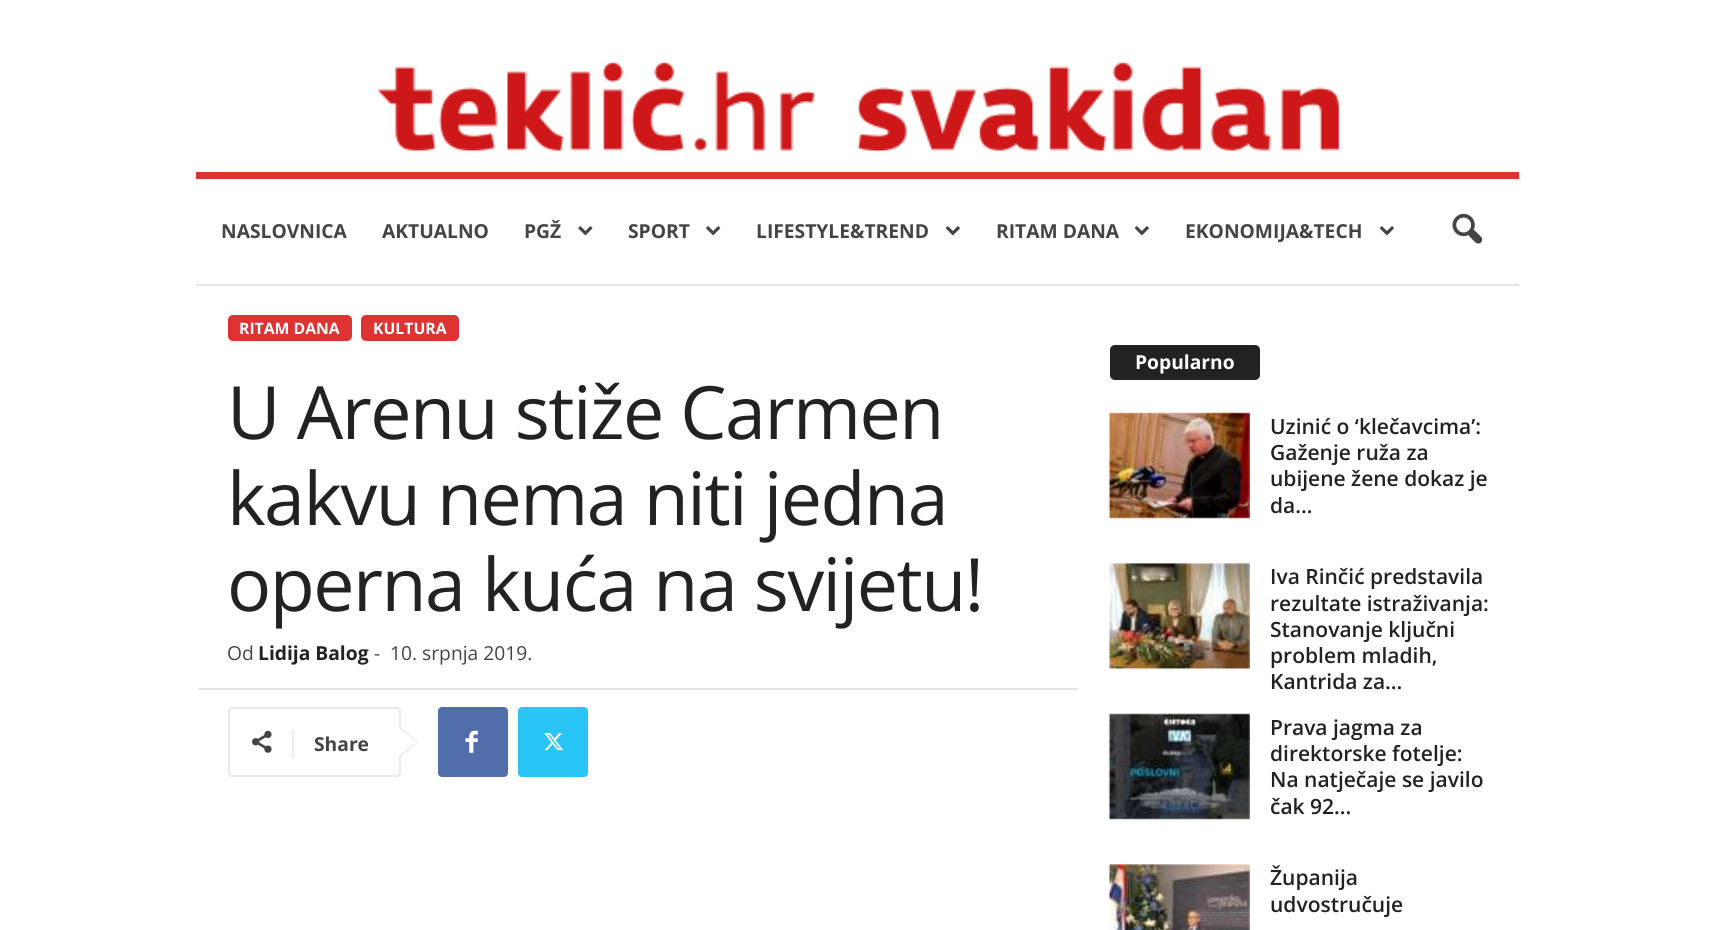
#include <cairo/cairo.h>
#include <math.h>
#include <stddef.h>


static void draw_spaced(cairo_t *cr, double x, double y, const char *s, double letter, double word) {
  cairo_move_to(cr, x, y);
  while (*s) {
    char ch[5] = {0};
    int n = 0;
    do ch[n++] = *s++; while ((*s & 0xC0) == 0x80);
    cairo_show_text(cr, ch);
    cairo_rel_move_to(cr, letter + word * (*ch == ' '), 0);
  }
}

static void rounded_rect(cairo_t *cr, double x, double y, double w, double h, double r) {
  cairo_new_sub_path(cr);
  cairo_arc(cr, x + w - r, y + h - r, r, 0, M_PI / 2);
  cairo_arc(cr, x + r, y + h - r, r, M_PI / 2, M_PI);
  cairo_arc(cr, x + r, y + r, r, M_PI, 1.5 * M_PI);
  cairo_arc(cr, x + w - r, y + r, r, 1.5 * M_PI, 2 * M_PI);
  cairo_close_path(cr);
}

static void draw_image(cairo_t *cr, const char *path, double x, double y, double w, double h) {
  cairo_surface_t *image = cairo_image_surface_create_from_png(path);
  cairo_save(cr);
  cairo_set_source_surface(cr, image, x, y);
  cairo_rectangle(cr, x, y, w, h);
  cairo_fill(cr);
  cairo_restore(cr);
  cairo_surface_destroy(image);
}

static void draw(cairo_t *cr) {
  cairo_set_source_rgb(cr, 1, 1, 1);
  cairo_paint(cr);
  draw_image(cr, "images/1.png", 377, 62, 962, 89);
  cairo_set_source_rgb(cr, 230 / 255.0, 230 / 255.0, 230 / 255.0);
  cairo_rectangle(cr, 196, 284, 1323, 2);
  cairo_fill(cr);
  cairo_set_source_rgb(cr, 221 / 255.0, 51 / 255.0, 51 / 255.0);
  cairo_rectangle(cr, 196, 172, 1323, 7);
  cairo_fill(cr);
  draw_image(cr, "images/2.png", 578, 226, 15, 10);
  draw_image(cr, "images/3.png", 706, 226, 15, 10);
  draw_image(cr, "images/4.png", 945, 226, 15, 10);
  draw_image(cr, "images/4.png", 1134, 226, 15, 10);
  draw_image(cr, "images/4.png", 1379, 226, 15, 10);
  draw_image(cr, "images/5.png", 1452, 213, 31, 31);
  rounded_rect(cr, 228, 315, 124, 26, 5);
  cairo_fill(cr);
  rounded_rect(cr, 361, 315, 98, 26, 5);
  cairo_fill(cr);
  cairo_set_source_rgb(cr, 230 / 255.0, 230 / 255.0, 230 / 255.0);
  cairo_rectangle(cr, 198, 688, 880, 2);
  cairo_fill(cr);
  rounded_rect(cr, 229, 708, 171, 68, 3);
  cairo_set_source_rgb(cr, 233 / 255.0, 233 / 255.0, 233 / 255.0);
  cairo_stroke(cr);
  cairo_new_path(cr);
  cairo_move_to(cr, 399, 758);
  cairo_line_to(cr, 399, 726);
  cairo_line_to(cr, 418, 742);
  cairo_close_path(cr);
  cairo_fill(cr);
  draw_image(cr, "images/6.png", 252, 730, 20, 23);
  cairo_set_source_rgb(cr, 235 / 255.0, 235 / 255.0, 235 / 255.0);
  cairo_rectangle(cr, 292, 730, 2, 28);
  cairo_fill(cr);
  cairo_set_source_rgb(cr, 1, 1, 1);
  cairo_new_path(cr);
  cairo_move_to(cr, 399, 756);
  cairo_line_to(cr, 399, 728);
  cairo_line_to(cr, 416.5, 742);
  cairo_close_path(cr);
  cairo_fill(cr);
  cairo_set_source_rgb(cr, 81 / 255.0, 110 / 255.0, 171 / 255.0);
  rounded_rect(cr, 438, 707, 70, 70, 4);
  cairo_fill(cr);
  draw_image(cr, "images/7.png", 465, 730, 13, 23);
  cairo_set_source_rgb(cr, 41 / 255.0, 197 / 255.0, 246 / 255.0);
  rounded_rect(cr, 518, 707, 70, 70, 4);
  cairo_fill(cr);
  draw_image(cr, "images/8.png", 544, 733, 19, 18);
  cairo_set_source_rgb(cr, 34 / 255.0, 34 / 255.0, 34 / 255.0);
  rounded_rect(cr, 1110, 345, 150, 35, 5);
  cairo_fill(cr);
  draw_image(cr, "images/9.png", 1108, 412, 142, 107);
  draw_image(cr, "images/10.png", 1108, 563, 142, 107);
  draw_image(cr, "images/11.png", 1108, 713, 142, 107);
  draw_image(cr, "images/12.png", 1108, 864, 142, 66);
  cairo_select_font_face(cr, "Open Sans", CAIRO_FONT_SLANT_NORMAL, CAIRO_FONT_WEIGHT_BOLD);
  cairo_set_font_size(cr, 19.25);
  cairo_set_source_rgb(cr, 68 / 255.0, 68 / 255.0, 68 / 255.0);
  cairo_move_to(cr, 221, 238);
  cairo_show_text(cr, "NASLOVNICA");
  cairo_move_to(cr, 382, 238);
  cairo_show_text(cr, "AKTUALNO");
  cairo_move_to(cr, 524, 238);
  cairo_show_text(cr, "PGŽ");
  cairo_move_to(cr, 628, 238);
  cairo_show_text(cr, "SPORT");
  cairo_move_to(cr, 756, 238);
  cairo_show_text(cr, "LIFESTYLE&TREND");
  cairo_move_to(cr, 996, 238);
  cairo_show_text(cr, "RITAM DANA");
  cairo_move_to(cr, 1185, 238);
  cairo_show_text(cr, "EKONOMIJA&TECH");
  cairo_set_font_size(cr, 15.75);
  cairo_set_source_rgb(cr, 1, 1, 1);
  cairo_move_to(cr, 239, 334);
  cairo_show_text(cr, "RITAM DANA");
  cairo_move_to(cr, 373, 334);
  cairo_show_text(cr, "KULTURA");
  cairo_select_font_face(cr, "Open Sans", CAIRO_FONT_SLANT_NORMAL, CAIRO_FONT_WEIGHT_NORMAL);
  cairo_set_font_size(cr, 73.5);
  cairo_set_source_rgb(cr, 34 / 255.0, 34 / 255.0, 34 / 255.0);
  draw_spaced(cr, 227, 439, "U Arenu stiže Carmen", -1.5, 0);
  draw_spaced(cr, 227, 525, "kakvu nema niti jedna", -1.5, 0);
  draw_spaced(cr, 227, 611, "operna kuća na svijetu!", -1.5, 0);
  cairo_set_font_size(cr, 19.25);
  cairo_set_source_rgb(cr, 68 / 255.0, 68 / 255.0, 68 / 255.0);
  cairo_move_to(cr, 227, 660);
  cairo_show_text(cr, "Od");
  cairo_select_font_face(cr, "Open Sans", CAIRO_FONT_SLANT_NORMAL, CAIRO_FONT_WEIGHT_BOLD);
  cairo_set_source_rgb(cr, 34 / 255.0, 34 / 255.0, 34 / 255.0);
  cairo_move_to(cr, 258, 660);
  cairo_show_text(cr, "Lidija Balog");
  cairo_select_font_face(cr, "Open Sans", CAIRO_FONT_SLANT_NORMAL, CAIRO_FONT_WEIGHT_NORMAL);
  cairo_set_source_rgb(cr, 68 / 255.0, 68 / 255.0, 68 / 255.0);
  cairo_move_to(cr, 374, 660);
  cairo_show_text(cr, "-");
  cairo_move_to(cr, 390, 660);
  cairo_show_text(cr, "10. srpnja 2019.");
  cairo_select_font_face(cr, "Open Sans", CAIRO_FONT_SLANT_NORMAL, CAIRO_FONT_WEIGHT_BOLD);
  cairo_move_to(cr, 314, 751);
  cairo_show_text(cr, "Share");
  cairo_set_source_rgb(cr, 1, 1, 1);
  cairo_move_to(cr, 1135, 369);
  cairo_show_text(cr, "Popularno");
  cairo_select_font_face(cr, "Open Sans SemiBold", CAIRO_FONT_SLANT_NORMAL, CAIRO_FONT_WEIGHT_NORMAL);
  cairo_set_font_size(cr, 21);
  cairo_set_source_rgb(cr, 34 / 255.0, 34 / 255.0, 34 / 255.0);
  cairo_move_to(cr, 1270, 434);
  cairo_show_text(cr, "Uzinić o ‘klečavcima’:");
  cairo_move_to(cr, 1270, 460);
  cairo_show_text(cr, "Gaženje ruža za");
  cairo_move_to(cr, 1270, 486);
  cairo_show_text(cr, "ubijene žene dokaz je");
  cairo_move_to(cr, 1270, 513);
  cairo_show_text(cr, "da...");
  cairo_move_to(cr, 1270, 584);
  cairo_show_text(cr, "Iva Rinčić predstavila");
  cairo_move_to(cr, 1270, 611);
  cairo_show_text(cr, "rezultate istraživanja:");
  cairo_move_to(cr, 1270, 637);
  cairo_show_text(cr, "Stanovanje ključni");
  cairo_move_to(cr, 1270, 663);
  cairo_show_text(cr, "problem mladih,");
  cairo_move_to(cr, 1270, 689);
  cairo_show_text(cr, "Kantrida za...");
  cairo_move_to(cr, 1270, 735);
  cairo_show_text(cr, "Prava jagma za");
  cairo_move_to(cr, 1270, 761);
  cairo_show_text(cr, "direktorske fotelje:");
  cairo_move_to(cr, 1270, 787);
  cairo_show_text(cr, "Na natječaje se javilo");
  cairo_move_to(cr, 1270, 814);
  cairo_show_text(cr, "čak 92...");
  cairo_move_to(cr, 1270, 885);
  cairo_show_text(cr, "Županija");
  cairo_move_to(cr, 1270, 912);
  cairo_show_text(cr, "udvostručuje");
}

int main(void) {
  cairo_surface_t *surface = cairo_image_surface_create(CAIRO_FORMAT_RGB24, 1713, 930);
  cairo_t *cr = cairo_create(surface);
  cairo_font_options_t *options = cairo_font_options_create();
  cairo_font_options_set_hint_metrics(options, CAIRO_HINT_METRICS_OFF);
  cairo_font_options_set_hint_style(options, CAIRO_HINT_STYLE_NONE);
  cairo_set_font_options(cr, options);
  cairo_set_miter_limit(cr, 4);
  draw(cr);
  cairo_surface_write_to_png(surface, "out.png");
  cairo_font_options_destroy(options);
  cairo_destroy(cr);
  cairo_surface_destroy(surface);
  return 0;
}
